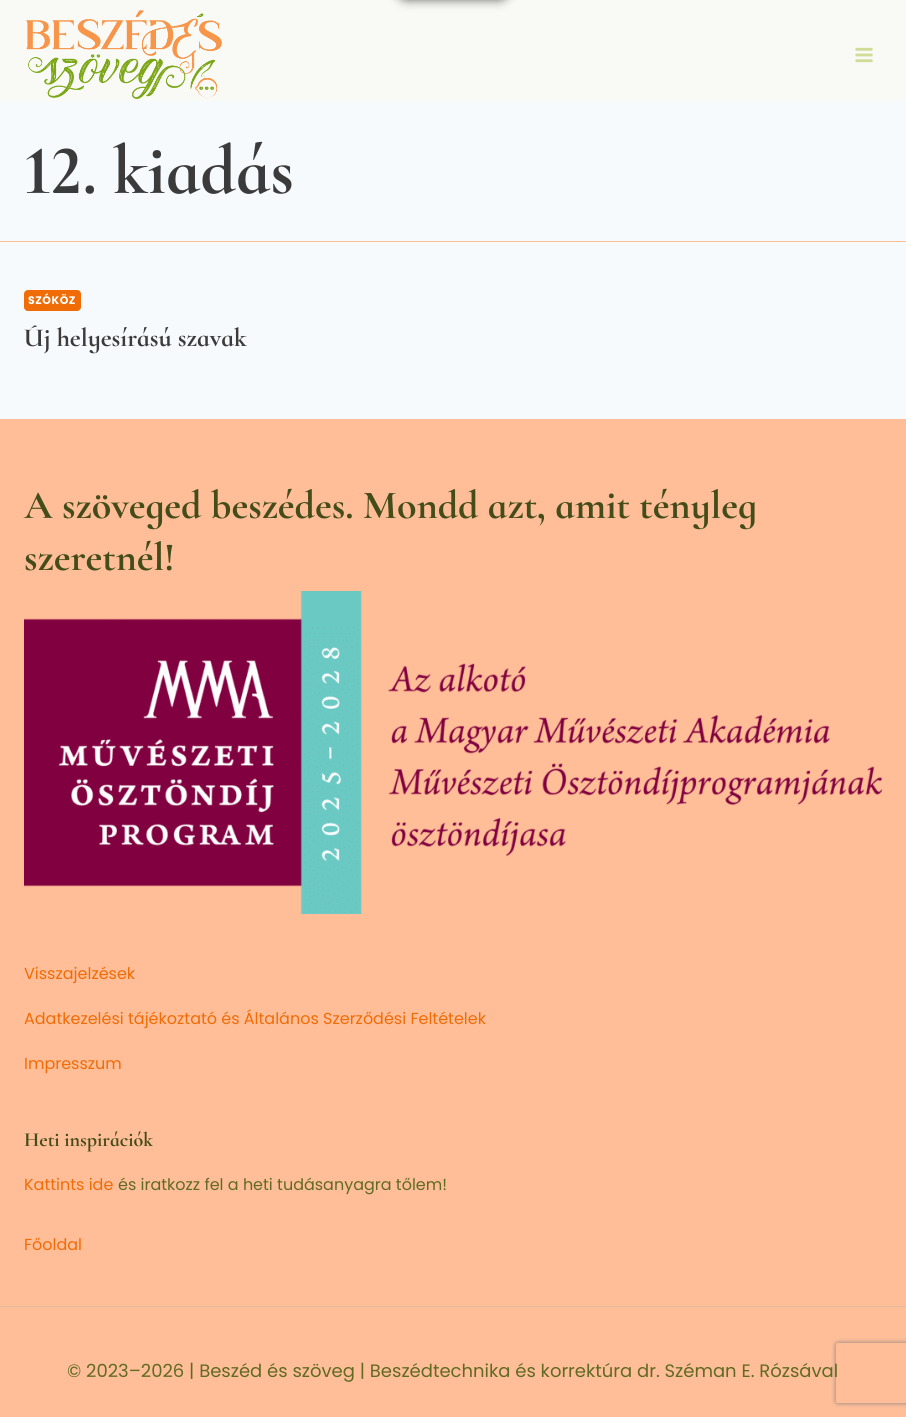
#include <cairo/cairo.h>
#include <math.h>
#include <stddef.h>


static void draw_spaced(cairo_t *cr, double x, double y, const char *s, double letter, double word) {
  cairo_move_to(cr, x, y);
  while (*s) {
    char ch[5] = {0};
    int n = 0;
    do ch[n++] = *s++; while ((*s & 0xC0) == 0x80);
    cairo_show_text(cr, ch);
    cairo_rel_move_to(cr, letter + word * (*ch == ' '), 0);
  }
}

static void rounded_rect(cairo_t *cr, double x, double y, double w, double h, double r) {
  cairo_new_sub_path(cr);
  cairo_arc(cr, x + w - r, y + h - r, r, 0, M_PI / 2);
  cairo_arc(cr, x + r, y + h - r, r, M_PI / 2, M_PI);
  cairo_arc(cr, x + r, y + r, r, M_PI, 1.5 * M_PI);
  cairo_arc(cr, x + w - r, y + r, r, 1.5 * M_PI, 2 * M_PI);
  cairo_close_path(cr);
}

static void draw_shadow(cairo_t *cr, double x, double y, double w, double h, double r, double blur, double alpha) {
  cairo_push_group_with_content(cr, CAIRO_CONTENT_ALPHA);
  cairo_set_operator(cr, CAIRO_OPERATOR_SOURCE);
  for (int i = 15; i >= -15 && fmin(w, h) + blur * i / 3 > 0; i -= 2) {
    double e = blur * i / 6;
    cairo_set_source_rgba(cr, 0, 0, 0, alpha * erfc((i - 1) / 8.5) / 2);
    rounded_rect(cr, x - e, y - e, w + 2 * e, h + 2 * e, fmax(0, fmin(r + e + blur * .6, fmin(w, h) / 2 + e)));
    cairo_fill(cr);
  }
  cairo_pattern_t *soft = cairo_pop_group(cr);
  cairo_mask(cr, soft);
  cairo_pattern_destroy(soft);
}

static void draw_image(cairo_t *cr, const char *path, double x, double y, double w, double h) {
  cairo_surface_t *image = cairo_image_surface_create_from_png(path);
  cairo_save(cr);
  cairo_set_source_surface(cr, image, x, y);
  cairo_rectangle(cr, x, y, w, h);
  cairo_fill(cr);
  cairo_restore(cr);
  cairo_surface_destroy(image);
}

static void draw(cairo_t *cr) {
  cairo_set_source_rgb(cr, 247 / 255.0, 250 / 255.0, 252 / 255.0);
  cairo_paint(cr);
  cairo_set_source_rgb(cr, 249 / 255.0, 250 / 255.0, 245 / 255.0);
  cairo_rectangle(cr, 0, 0, 906, 101);
  cairo_fill(cr);
  cairo_set_source_rgb(cr, 0, 0, 0);
  draw_shadow(cr, 396, -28, 114, 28, 14, 5, 0.57);
  draw_image(cr, "images/1.png", 26, 10, 196, 89);
  draw_image(cr, "images/2.png", 855, 47, 18, 16);
  cairo_set_source_rgb(cr, 1, 190 / 255.0, 152 / 255.0);
  cairo_rectangle(cr, 0, 241, 906, 1);
  cairo_fill(cr);
  cairo_set_source_rgb(cr, 240 / 255.0, 108 / 255.0, 7 / 255.0);
  rounded_rect(cr, 24, 290, 57, 21, 4);
  cairo_fill(cr);
  cairo_set_source_rgb(cr, 1, 190 / 255.0, 152 / 255.0);
  cairo_rectangle(cr, 0, 419, 906, 998);
  cairo_fill(cr);
  draw_image(cr, "images/3.png", 24, 591, 858, 323);
  cairo_set_source_rgb(cr, 231 / 255.0, 186 / 255.0, 159 / 255.0);
  cairo_rectangle(cr, 0, 1306, 906, 1);
  cairo_fill(cr);
  cairo_save(cr);
  cairo_set_fill_rule(cr, CAIRO_FILL_RULE_EVEN_ODD);
  cairo_new_path(cr);
  cairo_move_to(cr, 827, 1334);
  cairo_line_to(cr, 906, 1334);
  cairo_line_to(cr, 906, 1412);
  cairo_line_to(cr, 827, 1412);
  cairo_close_path(cr);
  cairo_move_to(cr, 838, 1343);
  cairo_line_to(cr, 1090, 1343);
  cairo_curve_to(cr, 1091, 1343, 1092, 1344, 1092, 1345);
  cairo_line_to(cr, 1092, 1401);
  cairo_curve_to(cr, 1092, 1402, 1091, 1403, 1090, 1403);
  cairo_line_to(cr, 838, 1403);
  cairo_curve_to(cr, 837, 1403, 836, 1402, 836, 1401);
  cairo_line_to(cr, 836, 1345);
  cairo_curve_to(cr, 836, 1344, 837, 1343, 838, 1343);
  cairo_close_path(cr);
  cairo_clip(cr);
  cairo_set_source_rgb(cr, 128 / 255.0, 128 / 255.0, 128 / 255.0);
  draw_shadow(cr, 836, 1343, 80, 60, 2, 2.5, 1);
  cairo_restore(cr);
  cairo_select_font_face(cr, "Cormorant Infant Light", CAIRO_FONT_SLANT_NORMAL, CAIRO_FONT_WEIGHT_NORMAL);
  cairo_set_font_size(cr, 70);
  cairo_set_source_rgb(cr, 59 / 255.0, 59 / 255.0, 59 / 255.0);
  cairo_move_to(cr, 24, 193);
  cairo_show_text(cr, "12. kiadás");
  cairo_select_font_face(cr, "Poppins", CAIRO_FONT_SLANT_NORMAL, CAIRO_FONT_WEIGHT_BOLD);
  cairo_set_font_size(cr, 11);
  cairo_set_source_rgb(cr, 1, 1, 1);
  draw_spaced(cr, 28, 304, "SZÓKÖZ", 0.5, 0);
  cairo_select_font_face(cr, "Cormorant Infant Light", CAIRO_FONT_SLANT_NORMAL, CAIRO_FONT_WEIGHT_NORMAL);
  cairo_set_font_size(cr, 26);
  cairo_set_source_rgb(cr, 59 / 255.0, 59 / 255.0, 59 / 255.0);
  cairo_move_to(cr, 24, 346);
  cairo_show_text(cr, "Új helyesírású szavak");
  cairo_set_font_size(cr, 40);
  cairo_set_source_rgb(cr, 68 / 255.0, 76 / 255.0, 26 / 255.0);
  cairo_move_to(cr, 24, 518);
  cairo_show_text(cr, "A szöveged beszédes. Mondd azt, amit tényleg");
  cairo_move_to(cr, 24, 570);
  cairo_show_text(cr, "szeretnél!");
  cairo_select_font_face(cr, "Poppins", CAIRO_FONT_SLANT_NORMAL, CAIRO_FONT_WEIGHT_NORMAL);
  cairo_set_font_size(cr, 16);
  cairo_set_source_rgb(cr, 240 / 255.0, 108 / 255.0, 7 / 255.0);
  cairo_move_to(cr, 24, 979);
  cairo_show_text(cr, "Visszajelzések");
  cairo_move_to(cr, 24, 1024);
  cairo_show_text(cr, "Adatkezelési tájékoztató és Általános Szerződési Feltételek");
  cairo_move_to(cr, 24, 1069);
  cairo_show_text(cr, "Impresszum");
  cairo_select_font_face(cr, "Cormorant Infant Light", CAIRO_FONT_SLANT_NORMAL, CAIRO_FONT_WEIGHT_NORMAL);
  cairo_set_font_size(cr, 20);
  cairo_set_source_rgb(cr, 68 / 255.0, 76 / 255.0, 26 / 255.0);
  cairo_move_to(cr, 24, 1146);
  cairo_show_text(cr, "Heti inspirációk");
  cairo_select_font_face(cr, "Poppins", CAIRO_FONT_SLANT_NORMAL, CAIRO_FONT_WEIGHT_NORMAL);
  cairo_set_font_size(cr, 16);
  cairo_set_source_rgb(cr, 240 / 255.0, 108 / 255.0, 7 / 255.0);
  cairo_move_to(cr, 24, 1190);
  cairo_show_text(cr, "Kattints ide");
  cairo_set_source_rgb(cr, 96 / 255.0, 106 / 255.0, 36 / 255.0);
  cairo_move_to(cr, 118, 1190);
  cairo_show_text(cr, "és iratkozz fel a heti tudásanyagra tőlem!");
  cairo_set_source_rgb(cr, 240 / 255.0, 108 / 255.0, 7 / 255.0);
  cairo_move_to(cr, 24, 1250);
  cairo_show_text(cr, "Főoldal");
  cairo_set_font_size(cr, 18);
  cairo_set_source_rgb(cr, 96 / 255.0, 106 / 255.0, 36 / 255.0);
  cairo_move_to(cr, 67, 1377);
  cairo_show_text(cr, "© 2023–2026 | Beszéd és szöveg | Beszédtechnika és korrektúra dr. Széman E. Rózsával");
}

int main(void) {
  cairo_surface_t *surface = cairo_image_surface_create(CAIRO_FORMAT_RGB24, 906, 1417);
  cairo_t *cr = cairo_create(surface);
  cairo_font_options_t *options = cairo_font_options_create();
  cairo_font_options_set_hint_metrics(options, CAIRO_HINT_METRICS_OFF);
  cairo_font_options_set_hint_style(options, CAIRO_HINT_STYLE_NONE);
  cairo_set_font_options(cr, options);
  cairo_set_miter_limit(cr, 4);
  draw(cr);
  cairo_surface_write_to_png(surface, "out.png");
  cairo_font_options_destroy(options);
  cairo_destroy(cr);
  cairo_surface_destroy(surface);
  return 0;
}
